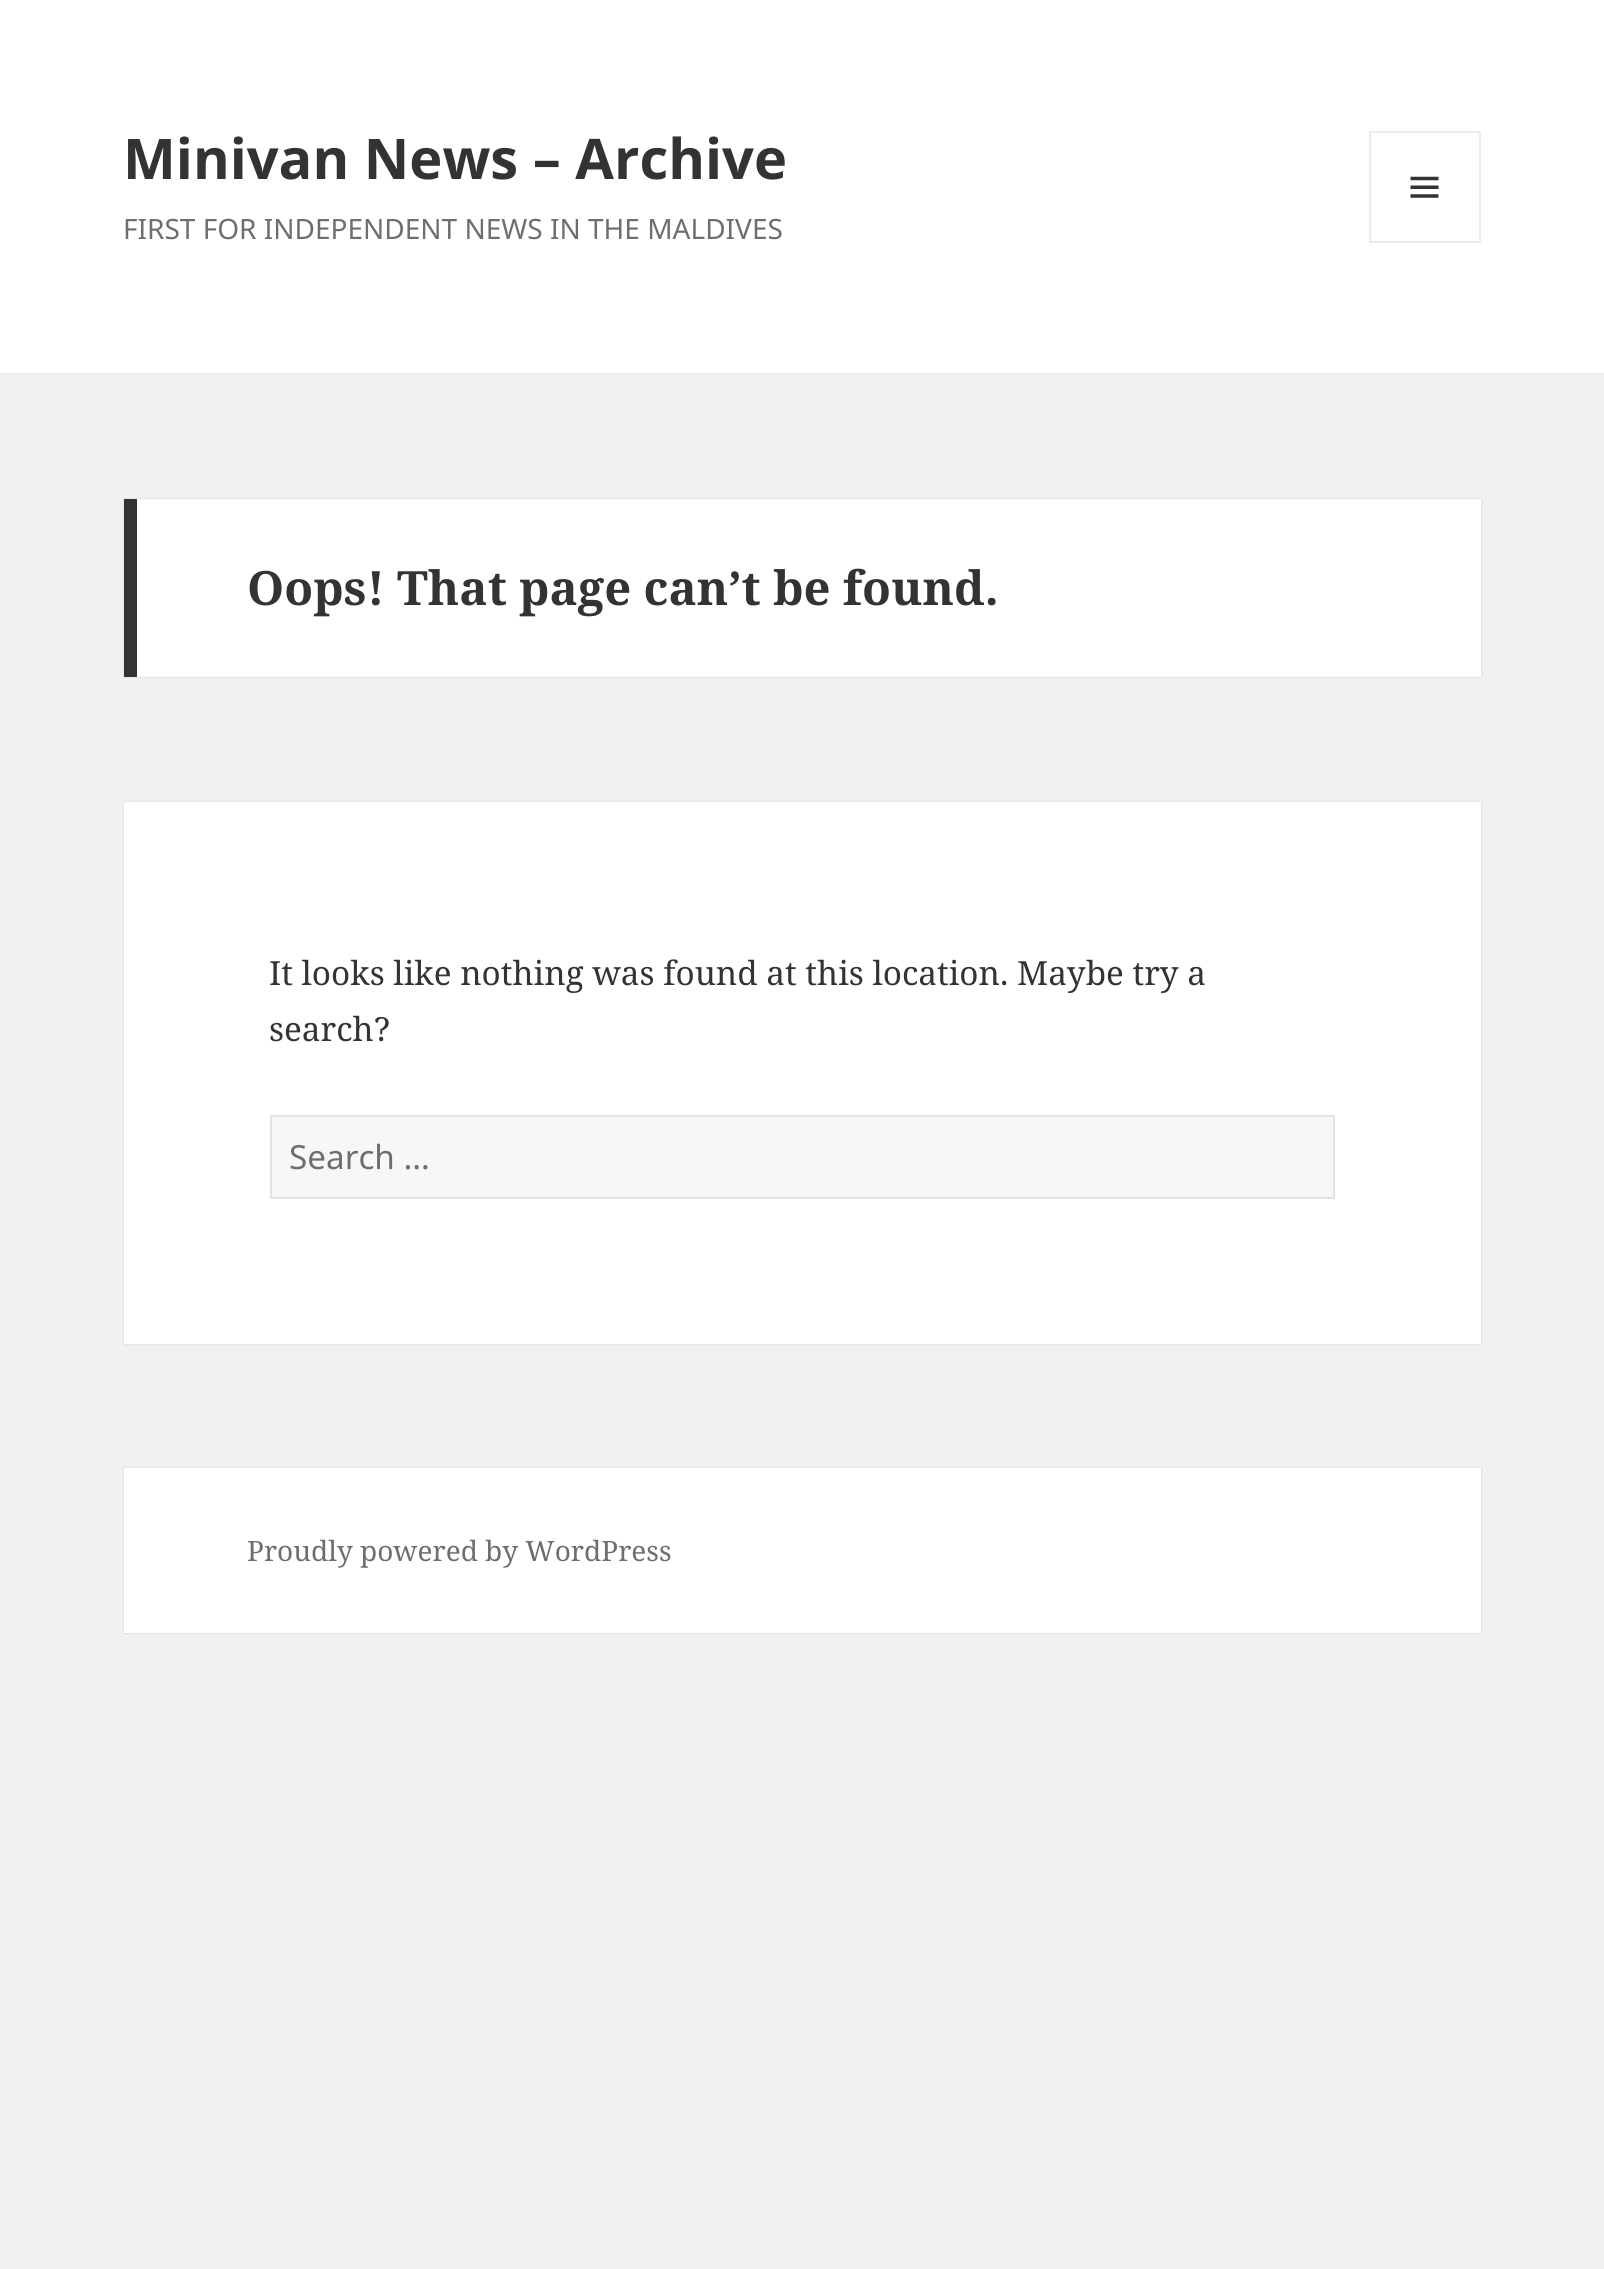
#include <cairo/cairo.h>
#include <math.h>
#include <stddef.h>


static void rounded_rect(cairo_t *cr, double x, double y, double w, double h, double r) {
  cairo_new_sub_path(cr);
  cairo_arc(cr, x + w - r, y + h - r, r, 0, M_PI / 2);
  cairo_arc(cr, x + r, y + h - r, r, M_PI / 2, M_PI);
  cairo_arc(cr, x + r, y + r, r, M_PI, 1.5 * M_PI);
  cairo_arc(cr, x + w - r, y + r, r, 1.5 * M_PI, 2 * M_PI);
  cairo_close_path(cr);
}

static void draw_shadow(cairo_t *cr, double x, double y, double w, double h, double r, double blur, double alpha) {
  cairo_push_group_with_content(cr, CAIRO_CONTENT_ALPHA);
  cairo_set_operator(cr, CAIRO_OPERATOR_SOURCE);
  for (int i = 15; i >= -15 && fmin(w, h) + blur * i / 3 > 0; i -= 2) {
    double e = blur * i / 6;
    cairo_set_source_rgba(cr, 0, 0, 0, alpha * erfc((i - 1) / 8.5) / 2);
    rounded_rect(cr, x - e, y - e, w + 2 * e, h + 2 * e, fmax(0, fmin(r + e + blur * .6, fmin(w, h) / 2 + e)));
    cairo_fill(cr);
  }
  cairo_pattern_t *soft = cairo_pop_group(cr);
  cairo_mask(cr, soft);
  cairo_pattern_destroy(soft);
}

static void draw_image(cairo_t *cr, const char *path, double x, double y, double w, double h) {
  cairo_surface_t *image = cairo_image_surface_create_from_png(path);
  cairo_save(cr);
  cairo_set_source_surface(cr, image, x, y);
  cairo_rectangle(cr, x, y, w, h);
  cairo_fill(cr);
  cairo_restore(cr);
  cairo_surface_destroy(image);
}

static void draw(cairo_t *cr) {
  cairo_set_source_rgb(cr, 241 / 255.0, 241 / 255.0, 241 / 255.0);
  cairo_paint(cr);
  cairo_set_source_rgb(cr, 1, 1, 1);
  cairo_rectangle(cr, 0, 0, 1604, 373);
  cairo_fill(cr);
  cairo_set_source_rgb(cr, 235 / 255.0, 235 / 255.0, 235 / 255.0);
  cairo_rectangle(cr, 0, 373, 1604, 2);
  cairo_fill(cr);
  cairo_rectangle(cr, 1370, 132, 110, 110);
  cairo_stroke(cr);
  draw_image(cr, "images/1.png", 1410, 176, 29, 22);
  cairo_set_source_rgb(cr, 0, 0, 0);
  draw_shadow(cr, 124, 499, 1357, 178, 0, 1, 0.15);
  cairo_set_source_rgb(cr, 1, 1, 1);
  cairo_rectangle(cr, 137, 499, 1344, 178);
  cairo_fill(cr);
  cairo_set_source_rgb(cr, 51 / 255.0, 51 / 255.0, 51 / 255.0);
  cairo_rectangle(cr, 124, 499, 13, 178);
  cairo_fill(cr);
  cairo_set_source_rgb(cr, 0, 0, 0);
  draw_shadow(cr, 124, 802, 1357, 542, 0, 1, 0.15);
  cairo_set_source_rgb(cr, 1, 1, 1);
  cairo_rectangle(cr, 124, 802, 1357, 542);
  cairo_fill(cr);
  cairo_set_source_rgb(cr, 247 / 255.0, 247 / 255.0, 247 / 255.0);
  cairo_rectangle(cr, 271, 1116, 1063, 82);
  cairo_fill_preserve(cr);
  cairo_set_source_rgb(cr, 227 / 255.0, 227 / 255.0, 227 / 255.0);
  cairo_stroke(cr);
  cairo_set_source_rgb(cr, 0, 0, 0);
  draw_shadow(cr, 124, 1468, 1357, 165, 0, 1, 0.15);
  cairo_set_source_rgb(cr, 1, 1, 1);
  cairo_rectangle(cr, 124, 1468, 1357, 165);
  cairo_fill(cr);
  cairo_select_font_face(cr, "Noto Sans", CAIRO_FONT_SLANT_NORMAL, CAIRO_FONT_WEIGHT_BOLD);
  cairo_set_font_size(cr, 56);
  cairo_set_source_rgb(cr, 51 / 255.0, 51 / 255.0, 51 / 255.0);
  cairo_move_to(cr, 123, 179);
  cairo_show_text(cr, "Minivan News – Archive");
  cairo_select_font_face(cr, "Noto Sans", CAIRO_FONT_SLANT_NORMAL, CAIRO_FONT_WEIGHT_NORMAL);
  cairo_set_font_size(cr, 28);
  cairo_set_source_rgb(cr, 110 / 255.0, 110 / 255.0, 110 / 255.0);
  cairo_move_to(cr, 123, 239);
  cairo_show_text(cr, "FIRST FOR INDEPENDENT NEWS IN THE MALDIVES");
  cairo_select_font_face(cr, "Noto Serif", CAIRO_FONT_SLANT_NORMAL, CAIRO_FONT_WEIGHT_BOLD);
  cairo_set_font_size(cr, 47.25);
  cairo_set_source_rgb(cr, 51 / 255.0, 51 / 255.0, 51 / 255.0);
  cairo_move_to(cr, 247, 605);
  cairo_show_text(cr, "Oops! That page can’t be found.");
  cairo_select_font_face(cr, "Noto Serif", CAIRO_FONT_SLANT_NORMAL, CAIRO_FONT_WEIGHT_NORMAL);
  cairo_set_font_size(cr, 33.25);
  cairo_move_to(cr, 269, 985);
  cairo_show_text(cr, "It looks like nothing was found at this location. Maybe try a");
  cairo_move_to(cr, 269, 1041);
  cairo_show_text(cr, "search?");
  cairo_select_font_face(cr, "Noto Sans", CAIRO_FONT_SLANT_NORMAL, CAIRO_FONT_WEIGHT_NORMAL);
  cairo_set_source_rgb(cr, 110 / 255.0, 110 / 255.0, 110 / 255.0);
  cairo_move_to(cr, 289, 1169);
  cairo_show_text(cr, "Search …");
  cairo_select_font_face(cr, "Noto Serif", CAIRO_FONT_SLANT_NORMAL, CAIRO_FONT_WEIGHT_NORMAL);
  cairo_set_font_size(cr, 28);
  cairo_move_to(cr, 247, 1561);
  cairo_show_text(cr, "Proudly powered by WordPress");
}

int main(void) {
  cairo_surface_t *surface = cairo_image_surface_create(CAIRO_FORMAT_RGB24, 1604, 2269);
  cairo_t *cr = cairo_create(surface);
  cairo_font_options_t *options = cairo_font_options_create();
  cairo_font_options_set_hint_metrics(options, CAIRO_HINT_METRICS_OFF);
  cairo_font_options_set_hint_style(options, CAIRO_HINT_STYLE_NONE);
  cairo_set_font_options(cr, options);
  cairo_set_miter_limit(cr, 4);
  draw(cr);
  cairo_surface_write_to_png(surface, "out.png");
  cairo_font_options_destroy(options);
  cairo_destroy(cr);
  cairo_surface_destroy(surface);
  return 0;
}
